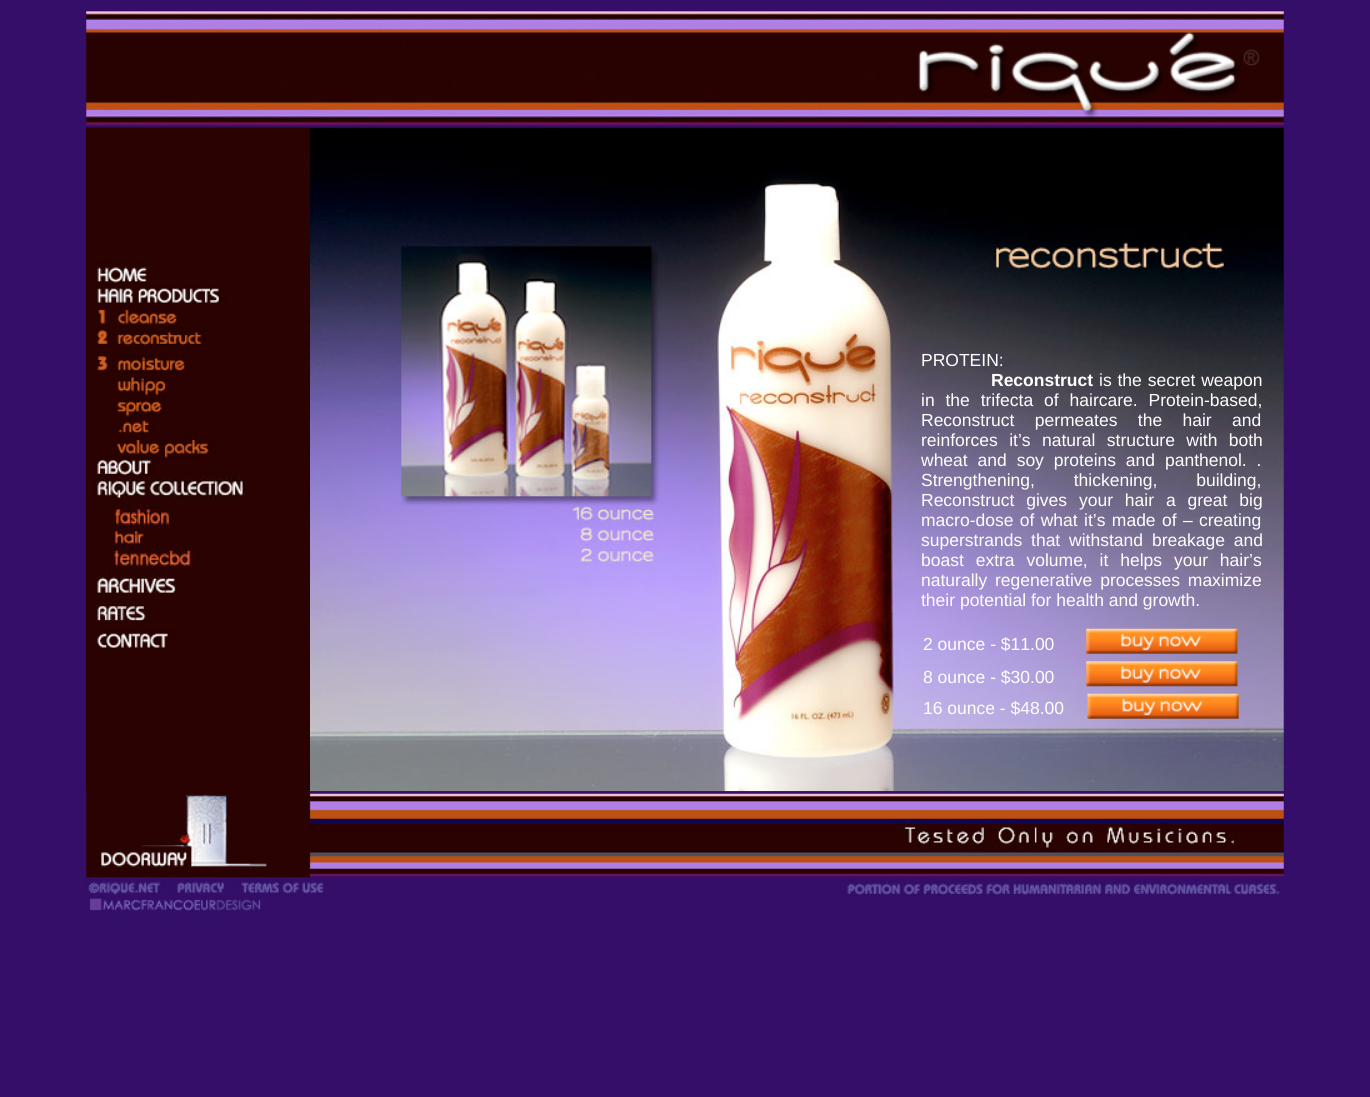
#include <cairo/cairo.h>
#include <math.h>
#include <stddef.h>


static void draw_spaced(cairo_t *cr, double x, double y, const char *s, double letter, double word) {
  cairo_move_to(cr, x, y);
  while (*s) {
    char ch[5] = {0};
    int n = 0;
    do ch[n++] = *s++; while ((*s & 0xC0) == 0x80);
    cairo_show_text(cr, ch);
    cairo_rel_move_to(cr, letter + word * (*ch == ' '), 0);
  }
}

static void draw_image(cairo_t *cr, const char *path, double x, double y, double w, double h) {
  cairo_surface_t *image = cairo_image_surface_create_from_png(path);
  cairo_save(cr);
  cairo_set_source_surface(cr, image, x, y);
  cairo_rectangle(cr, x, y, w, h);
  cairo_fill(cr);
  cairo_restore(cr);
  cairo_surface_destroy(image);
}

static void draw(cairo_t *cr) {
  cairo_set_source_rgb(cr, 52 / 255.0, 14 / 255.0, 105 / 255.0);
  cairo_paint(cr);
  cairo_set_source_rgb(cr, 42 / 255.0, 2 / 255.0, 1 / 255.0);
  cairo_rectangle(cr, 86, 127, 224, 665);
  cairo_fill(cr);
  draw_image(cr, "images/19.png", 310, 127, 974, 665);
  draw_image(cr, "images/1.png", 86, 11, 1198, 117);
  draw_image(cr, "images/2.png", 96, 260, 51, 25);
  draw_image(cr, "images/3.png", 96, 285, 130, 20);
  draw_image(cr, "images/4.png", 97, 307, 80, 19);
  draw_image(cr, "images/5.png", 96, 326, 110, 20);
  draw_image(cr, "images/6.png", 96, 354, 90, 19);
  draw_image(cr, "images/7.png", 117, 372, 49, 23);
  draw_image(cr, "images/8.png", 116, 395, 50, 22);
  draw_image(cr, "images/9.png", 117, 417, 39, 16);
  draw_image(cr, "images/10.png", 116, 432, 100, 27);
  draw_image(cr, "images/11.png", 97, 459, 59, 19);
  draw_image(cr, "images/12.png", 93, 477, 154, 21);
  draw_image(cr, "images/13.png", 110, 505, 66, 23);
  draw_image(cr, "images/14.png", 106, 527, 49, 20);
  draw_image(cr, "images/15.png", 108, 546, 88, 23);
  draw_image(cr, "images/16.png", 96, 573, 81, 21);
  draw_image(cr, "images/17.png", 96, 601, 51, 21);
  draw_image(cr, "images/18.png", 96, 629, 79, 20);
  draw_image(cr, "images/20.png", 1086, 628, 152, 26);
  draw_image(cr, "images/21.png", 1086, 661, 152, 26);
  draw_image(cr, "images/22.png", 1087, 693, 152, 26);
  draw_image(cr, "images/23.png", 86, 791, 1198, 87);
  draw_image(cr, "images/24.png", 86, 877, 83, 19);
  draw_image(cr, "images/25.png", 169, 877, 64, 19);
  draw_image(cr, "images/26.png", 232, 877, 92, 19);
  draw_image(cr, "images/27.png", 847, 877, 433, 19);
  draw_image(cr, "images/28.png", 86, 896, 175, 19);
  cairo_select_font_face(cr, "Liberation Sans", CAIRO_FONT_SLANT_NORMAL, CAIRO_FONT_WEIGHT_NORMAL);
  cairo_set_font_size(cr, 17.5);
  cairo_set_source_rgb(cr, 1, 1, 1);
  cairo_move_to(cr, 921, 366);
  cairo_show_text(cr, "PROTEIN:");
  cairo_select_font_face(cr, "Liberation Sans", CAIRO_FONT_SLANT_NORMAL, CAIRO_FONT_WEIGHT_BOLD);
  cairo_move_to(cr, 991, 386);
  cairo_show_text(cr, "Reconstruct");
  cairo_select_font_face(cr, "Liberation Sans", CAIRO_FONT_SLANT_NORMAL, CAIRO_FONT_WEIGHT_NORMAL);
  draw_spaced(cr, 1099, 386, "is the secret weapon", 0, 1);
  draw_spaced(cr, 921, 406, "in the trifecta of haircare. Protein-based,", 0, 6);
  draw_spaced(cr, 921, 426, "Reconstruct permeates the hair and", 0, 15.5);
  draw_spaced(cr, 921, 446, "reinforces it’s natural structure with both", 0, 6.5);
  draw_spaced(cr, 921, 466, "wheat and soy proteins and panthenol. .", 0, 5);
  draw_spaced(cr, 921, 486, "Strengthening, thickening, building,", 0, 34);
  draw_spaced(cr, 921, 506, "Reconstruct gives your hair a great big", 0, 7);
  draw_spaced(cr, 921, 526, "macro-dose of what it’s made of – creating", 0, 1.5);
  draw_spaced(cr, 921, 546, "superstrands that withstand breakage and", 0, 4);
  draw_spaced(cr, 921, 566, "boast extra volume, it helps your hair’s", 0, 7);
  draw_spaced(cr, 921, 586, "naturally regenerative processes maximize", 0, 3);
  cairo_move_to(cr, 921, 606);
  cairo_show_text(cr, "their potential for health and growth.");
  cairo_move_to(cr, 923, 650);
  cairo_show_text(cr, "2 ounce - $11.00");
  cairo_move_to(cr, 923, 683);
  cairo_show_text(cr, "8 ounce - $30.00");
  cairo_move_to(cr, 923, 714);
  cairo_show_text(cr, "16 ounce - $48.00");
}

int main(void) {
  cairo_surface_t *surface = cairo_image_surface_create(CAIRO_FORMAT_RGB24, 1370, 1097);
  cairo_t *cr = cairo_create(surface);
  cairo_font_options_t *options = cairo_font_options_create();
  cairo_font_options_set_hint_metrics(options, CAIRO_HINT_METRICS_OFF);
  cairo_font_options_set_hint_style(options, CAIRO_HINT_STYLE_NONE);
  cairo_set_font_options(cr, options);
  cairo_set_miter_limit(cr, 4);
  draw(cr);
  cairo_surface_write_to_png(surface, "out.png");
  cairo_font_options_destroy(options);
  cairo_destroy(cr);
  cairo_surface_destroy(surface);
  return 0;
}
